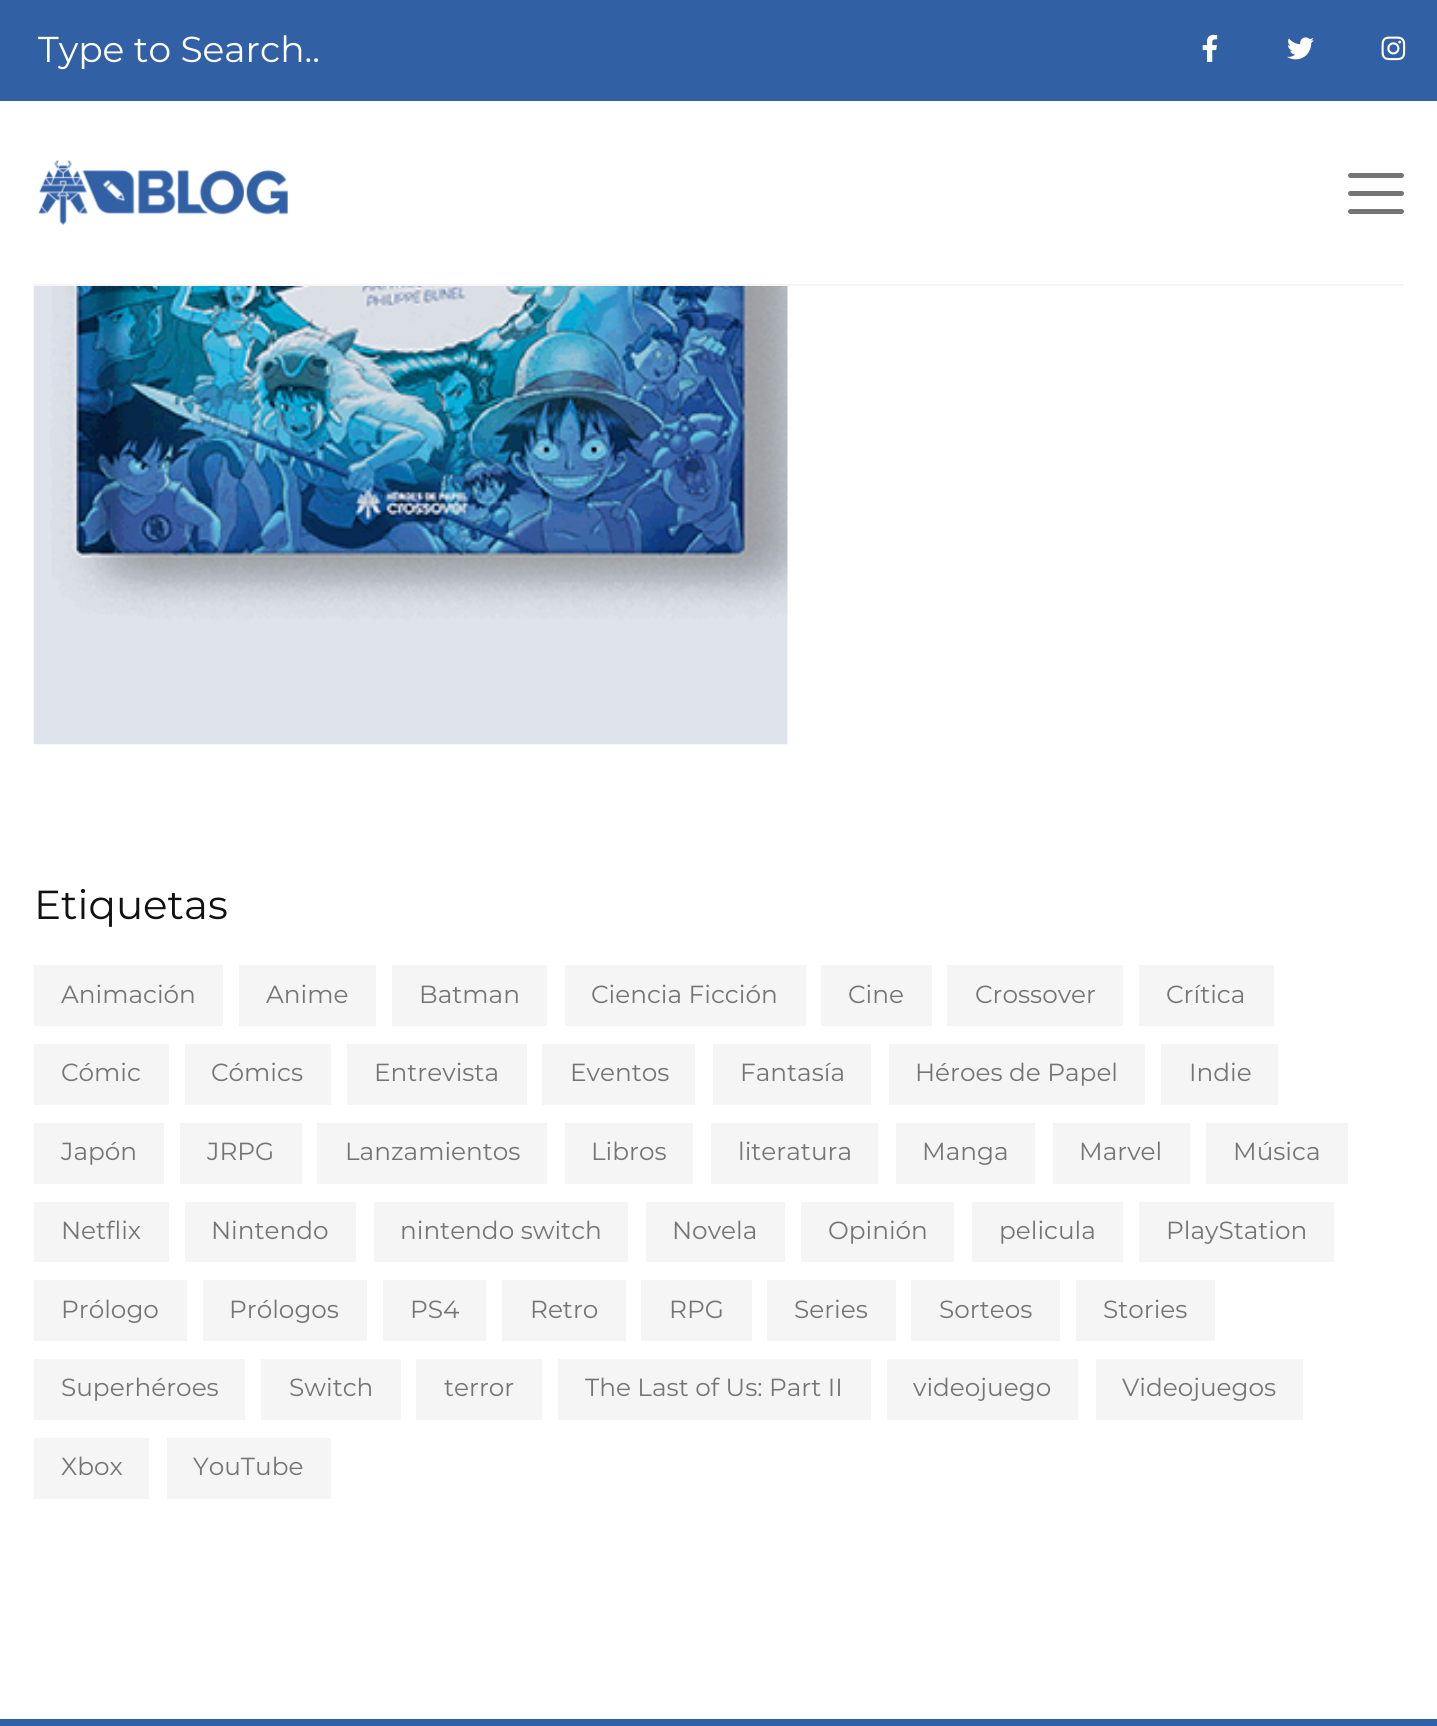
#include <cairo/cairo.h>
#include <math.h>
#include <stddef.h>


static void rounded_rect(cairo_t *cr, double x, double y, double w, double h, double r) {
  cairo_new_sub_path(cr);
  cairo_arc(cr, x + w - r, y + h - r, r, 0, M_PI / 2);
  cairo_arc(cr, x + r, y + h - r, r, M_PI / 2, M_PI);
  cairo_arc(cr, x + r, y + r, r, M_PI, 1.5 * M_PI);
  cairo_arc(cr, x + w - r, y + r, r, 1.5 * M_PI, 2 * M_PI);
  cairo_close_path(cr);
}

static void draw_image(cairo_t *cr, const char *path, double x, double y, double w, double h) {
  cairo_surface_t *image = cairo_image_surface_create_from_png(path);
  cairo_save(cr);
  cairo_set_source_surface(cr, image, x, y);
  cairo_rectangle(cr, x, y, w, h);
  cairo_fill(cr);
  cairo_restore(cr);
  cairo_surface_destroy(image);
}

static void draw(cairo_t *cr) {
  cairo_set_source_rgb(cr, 1, 1, 1);
  cairo_paint(cr);
  cairo_set_source_rgb(cr, 49 / 255.0, 96 / 255.0, 164 / 255.0);
  cairo_rectangle(cr, 0, 0, 1437, 101);
  cairo_fill(cr);
  draw_image(cr, "images/1.png", 1202, 34, 16, 28);
  draw_image(cr, "images/2.png", 1287, 37, 27, 23);
  draw_image(cr, "images/3.png", 1381, 36, 25, 25);
  cairo_set_source_rgb(cr, 245 / 255.0, 245 / 255.0, 245 / 255.0);
  cairo_rectangle(cr, 34, 284, 1370, 2);
  cairo_fill(cr);
  draw_image(cr, "images/4.png", 38, 160, 250, 66);
  cairo_set_source_rgb(cr, 117 / 255.0, 117 / 255.0, 117 / 255.0);
  rounded_rect(cr, 1348, 173, 56, 5, 2.5);
  cairo_fill(cr);
  rounded_rect(cr, 1348, 191, 56, 5, 2.5);
  cairo_fill(cr);
  rounded_rect(cr, 1348, 209, 56, 5, 2.5);
  cairo_fill(cr);
  draw_image(cr, "images/5.png", 33, 286, 755, 459);
  cairo_set_source_rgb(cr, 245 / 255.0, 245 / 255.0, 245 / 255.0);
  cairo_rectangle(cr, 34, 965, 189, 61);
  cairo_fill(cr);
  cairo_rectangle(cr, 239, 965, 137, 61);
  cairo_fill(cr);
  cairo_rectangle(cr, 392, 965, 155, 61);
  cairo_fill(cr);
  cairo_rectangle(cr, 565, 965, 241, 61);
  cairo_fill(cr);
  cairo_rectangle(cr, 821, 965, 111, 61);
  cairo_fill(cr);
  cairo_rectangle(cr, 947, 965, 176, 61);
  cairo_fill(cr);
  cairo_rectangle(cr, 1139, 965, 135, 61);
  cairo_fill(cr);
  cairo_rectangle(cr, 34, 1044, 135, 61);
  cairo_fill(cr);
  cairo_rectangle(cr, 185, 1044, 146, 61);
  cairo_fill(cr);
  cairo_rectangle(cr, 347, 1044, 180, 61);
  cairo_fill(cr);
  cairo_rectangle(cr, 542, 1044, 153, 61);
  cairo_fill(cr);
  cairo_rectangle(cr, 713, 1044, 158, 61);
  cairo_fill(cr);
  cairo_rectangle(cr, 889, 1044, 256, 61);
  cairo_fill(cr);
  cairo_rectangle(cr, 1161, 1044, 117, 61);
  cairo_fill(cr);
  cairo_rectangle(cr, 34, 1123, 130, 61);
  cairo_fill(cr);
  cairo_rectangle(cr, 180, 1123, 122, 61);
  cairo_fill(cr);
  cairo_rectangle(cr, 317, 1123, 230, 61);
  cairo_fill(cr);
  cairo_rectangle(cr, 565, 1123, 128, 61);
  cairo_fill(cr);
  cairo_rectangle(cr, 711, 1123, 167, 61);
  cairo_fill(cr);
  cairo_rectangle(cr, 896, 1123, 139, 61);
  cairo_fill(cr);
  cairo_rectangle(cr, 1053, 1123, 137, 61);
  cairo_fill(cr);
  cairo_rectangle(cr, 1206, 1123, 142, 61);
  cairo_fill(cr);
  cairo_rectangle(cr, 34, 1202, 135, 60);
  cairo_fill(cr);
  cairo_rectangle(cr, 185, 1202, 171, 60);
  cairo_fill(cr);
  cairo_rectangle(cr, 374, 1202, 254, 60);
  cairo_fill(cr);
  cairo_rectangle(cr, 646, 1202, 139, 60);
  cairo_fill(cr);
  cairo_rectangle(cr, 801, 1202, 153, 60);
  cairo_fill(cr);
  cairo_rectangle(cr, 972, 1202, 151, 60);
  cairo_fill(cr);
  cairo_rectangle(cr, 1139, 1202, 195, 60);
  cairo_fill(cr);
  cairo_rectangle(cr, 34, 1280, 153, 61);
  cairo_fill(cr);
  cairo_rectangle(cr, 203, 1280, 164, 61);
  cairo_fill(cr);
  cairo_rectangle(cr, 383, 1280, 103, 61);
  cairo_fill(cr);
  cairo_rectangle(cr, 502, 1280, 124, 61);
  cairo_fill(cr);
  cairo_rectangle(cr, 641, 1280, 111, 61);
  cairo_fill(cr);
  cairo_rectangle(cr, 767, 1280, 129, 61);
  cairo_fill(cr);
  cairo_rectangle(cr, 911, 1280, 149, 61);
  cairo_fill(cr);
  cairo_rectangle(cr, 1076, 1280, 139, 61);
  cairo_fill(cr);
  cairo_rectangle(cr, 34, 1359, 211, 61);
  cairo_fill(cr);
  cairo_rectangle(cr, 261, 1359, 140, 61);
  cairo_fill(cr);
  cairo_rectangle(cr, 416, 1359, 126, 61);
  cairo_fill(cr);
  cairo_rectangle(cr, 558, 1359, 313, 61);
  cairo_fill(cr);
  cairo_rectangle(cr, 887, 1359, 191, 61);
  cairo_fill(cr);
  cairo_rectangle(cr, 1096, 1359, 207, 61);
  cairo_fill(cr);
  cairo_rectangle(cr, 34, 1438, 115, 61);
  cairo_fill(cr);
  cairo_rectangle(cr, 167, 1438, 164, 61);
  cairo_fill(cr);
  cairo_set_source_rgb(cr, 49 / 255.0, 96 / 255.0, 164 / 255.0);
  cairo_rectangle(cr, 0, 1719, 1437, 7);
  cairo_fill(cr);
  cairo_select_font_face(cr, "Montserrat Thin", CAIRO_FONT_SLANT_NORMAL, CAIRO_FONT_WEIGHT_NORMAL);
  cairo_set_font_size(cr, 36);
  cairo_set_source_rgb(cr, 1, 1, 1);
  cairo_move_to(cr, 38, 62);
  cairo_show_text(cr, "Type to Search..");
  cairo_set_font_size(cr, 40.5);
  cairo_set_source_rgb(cr, 17 / 255.0, 17 / 255.0, 17 / 255.0);
  cairo_move_to(cr, 34, 919);
  cairo_show_text(cr, "Etiquetas");
  cairo_set_font_size(cr, 24.75);
  cairo_set_source_rgb(cr, 117 / 255.0, 117 / 255.0, 117 / 255.0);
  cairo_move_to(cr, 61, 1003);
  cairo_show_text(cr, "Animación");
  cairo_move_to(cr, 266, 1003);
  cairo_show_text(cr, "Anime");
  cairo_move_to(cr, 419, 1003);
  cairo_show_text(cr, "Batman");
  cairo_move_to(cr, 591, 1003);
  cairo_show_text(cr, "Ciencia Ficción");
  cairo_move_to(cr, 848, 1003);
  cairo_show_text(cr, "Cine");
  cairo_move_to(cr, 975, 1003);
  cairo_show_text(cr, "Crossover");
  cairo_move_to(cr, 1166, 1003);
  cairo_show_text(cr, "Crítica");
  cairo_move_to(cr, 61, 1081);
  cairo_show_text(cr, "Cómic");
  cairo_move_to(cr, 211, 1081);
  cairo_show_text(cr, "Cómics");
  cairo_move_to(cr, 374, 1081);
  cairo_show_text(cr, "Entrevista");
  cairo_move_to(cr, 570, 1081);
  cairo_show_text(cr, "Eventos");
  cairo_move_to(cr, 740, 1081);
  cairo_show_text(cr, "Fantasía");
  cairo_move_to(cr, 915, 1081);
  cairo_show_text(cr, "Héroes de Papel");
  cairo_move_to(cr, 1189, 1081);
  cairo_show_text(cr, "Indie");
  cairo_move_to(cr, 61, 1160);
  cairo_show_text(cr, "Japón");
  cairo_move_to(cr, 207, 1160);
  cairo_show_text(cr, "JRPG");
  cairo_move_to(cr, 345, 1160);
  cairo_show_text(cr, "Lanzamientos");
  cairo_move_to(cr, 591, 1160);
  cairo_show_text(cr, "Libros");
  cairo_move_to(cr, 738, 1160);
  cairo_show_text(cr, "literatura");
  cairo_move_to(cr, 922, 1160);
  cairo_show_text(cr, "Manga");
  cairo_move_to(cr, 1079, 1160);
  cairo_show_text(cr, "Marvel");
  cairo_move_to(cr, 1233, 1160);
  cairo_show_text(cr, "Música");
  cairo_move_to(cr, 61, 1239);
  cairo_show_text(cr, "Netflix");
  cairo_move_to(cr, 211, 1239);
  cairo_show_text(cr, "Nintendo");
  cairo_move_to(cr, 400, 1239);
  cairo_show_text(cr, "nintendo switch");
  cairo_move_to(cr, 672, 1239);
  cairo_show_text(cr, "Novela");
  cairo_move_to(cr, 828, 1239);
  cairo_show_text(cr, "Opinión");
  cairo_move_to(cr, 999, 1239);
  cairo_show_text(cr, "pelicula");
  cairo_move_to(cr, 1166, 1239);
  cairo_show_text(cr, "PlayStation");
  cairo_move_to(cr, 61, 1318);
  cairo_show_text(cr, "Prólogo");
  cairo_move_to(cr, 229, 1318);
  cairo_show_text(cr, "Prólogos");
  cairo_move_to(cr, 410, 1318);
  cairo_show_text(cr, "PS4");
  cairo_move_to(cr, 530, 1318);
  cairo_show_text(cr, "Retro");
  cairo_move_to(cr, 669, 1318);
  cairo_show_text(cr, "RPG");
  cairo_move_to(cr, 794, 1318);
  cairo_show_text(cr, "Series");
  cairo_move_to(cr, 939, 1318);
  cairo_show_text(cr, "Sorteos");
  cairo_move_to(cr, 1103, 1318);
  cairo_show_text(cr, "Stories");
  cairo_move_to(cr, 61, 1396);
  cairo_show_text(cr, "Superhéroes");
  cairo_move_to(cr, 289, 1396);
  cairo_show_text(cr, "Switch");
  cairo_move_to(cr, 444, 1396);
  cairo_show_text(cr, "terror");
  cairo_move_to(cr, 585, 1396);
  cairo_show_text(cr, "The Last of Us: Part II");
  cairo_move_to(cr, 913, 1396);
  cairo_show_text(cr, "videojuego");
  cairo_move_to(cr, 1122, 1396);
  cairo_show_text(cr, "Videojuegos");
  cairo_move_to(cr, 61, 1475);
  cairo_show_text(cr, "Xbox");
  cairo_move_to(cr, 193, 1475);
  cairo_show_text(cr, "YouTube");
}

int main(void) {
  cairo_surface_t *surface = cairo_image_surface_create(CAIRO_FORMAT_RGB24, 1437, 1726);
  cairo_t *cr = cairo_create(surface);
  cairo_font_options_t *options = cairo_font_options_create();
  cairo_font_options_set_hint_metrics(options, CAIRO_HINT_METRICS_OFF);
  cairo_font_options_set_hint_style(options, CAIRO_HINT_STYLE_NONE);
  cairo_set_font_options(cr, options);
  cairo_set_miter_limit(cr, 4);
  draw(cr);
  cairo_surface_write_to_png(surface, "out.png");
  cairo_font_options_destroy(options);
  cairo_destroy(cr);
  cairo_surface_destroy(surface);
  return 0;
}
